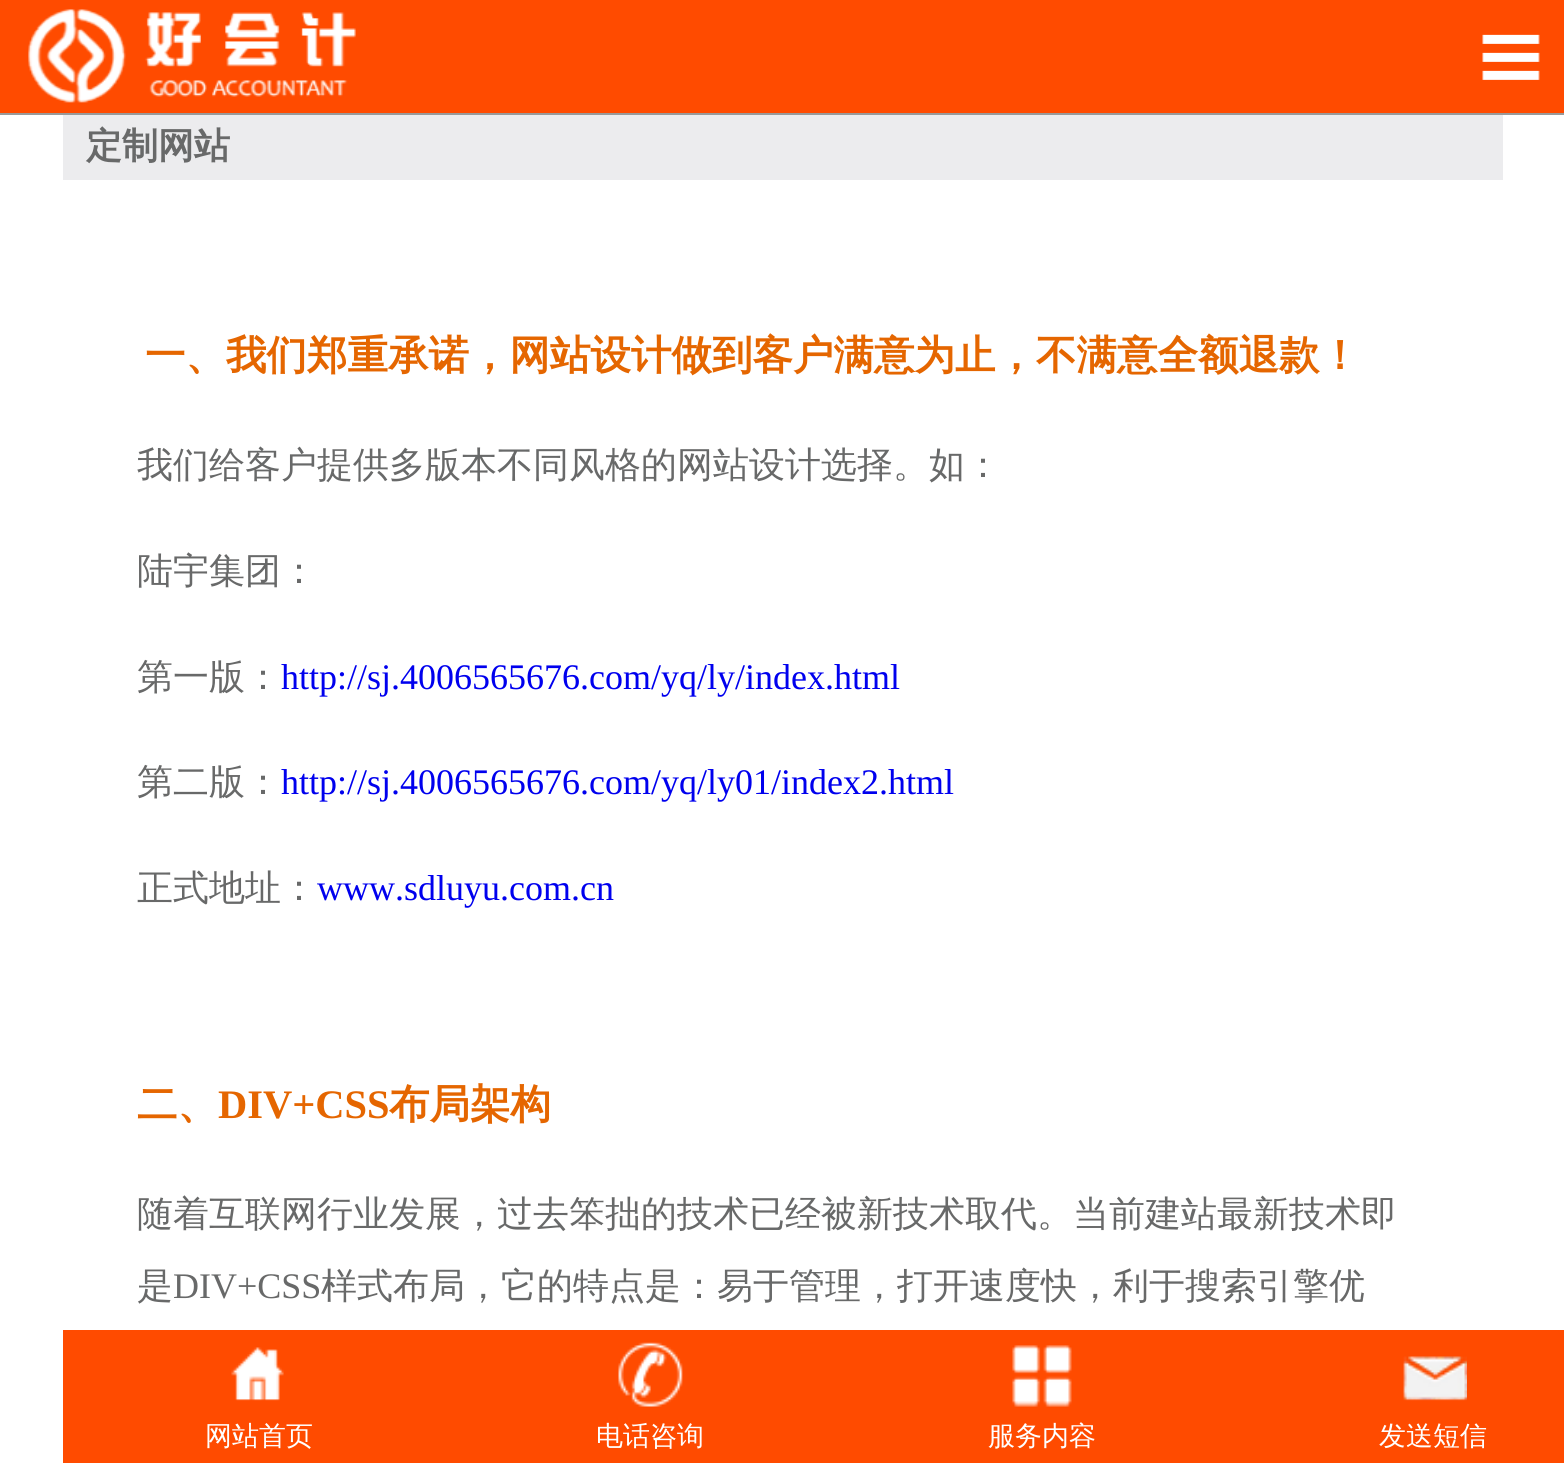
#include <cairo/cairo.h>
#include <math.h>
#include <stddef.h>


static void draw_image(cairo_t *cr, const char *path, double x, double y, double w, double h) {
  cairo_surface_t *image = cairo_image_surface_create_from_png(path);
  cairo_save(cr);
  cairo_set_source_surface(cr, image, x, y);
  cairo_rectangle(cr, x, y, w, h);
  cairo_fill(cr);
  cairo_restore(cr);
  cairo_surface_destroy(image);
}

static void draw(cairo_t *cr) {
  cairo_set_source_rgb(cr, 1, 1, 1);
  cairo_paint(cr);
  cairo_set_source_rgb(cr, 1, 75 / 255.0, 0);
  cairo_rectangle(cr, 0, 0, 1564, 113);
  cairo_fill(cr);
  cairo_set_source_rgb(cr, 153 / 255.0, 153 / 255.0, 153 / 255.0);
  cairo_rectangle(cr, 0, 113, 1564, 2);
  cairo_fill(cr);
  draw_image(cr, "images/1.png", 28, 9, 328, 94);
  draw_image(cr, "images/2.png", 1482, 34, 58, 46);
  cairo_set_source_rgb(cr, 236 / 255.0, 236 / 255.0, 238 / 255.0);
  cairo_rectangle(cr, 63, 115, 1440, 65);
  cairo_fill(cr);
  cairo_set_source_rgb(cr, 1, 75 / 255.0, 0);
  cairo_rectangle(cr, 63, 1330, 1501, 133);
  cairo_fill(cr);
  draw_image(cr, "images/3.png", 231, 1347, 53, 54);
  draw_image(cr, "images/4.png", 618, 1342, 65, 65);
  draw_image(cr, "images/5.png", 1012, 1345, 60, 62);
  draw_image(cr, "images/6.png", 1403, 1356, 64, 45);
  cairo_select_font_face(cr, "WenQuanYi Zen Hei", CAIRO_FONT_SLANT_NORMAL, CAIRO_FONT_WEIGHT_BOLD);
  cairo_set_font_size(cr, 36);
  cairo_set_source_rgb(cr, 104 / 255.0, 105 / 255.0, 105 / 255.0);
  cairo_move_to(cr, 86, 158);
  cairo_show_text(cr, "定制网站");
  cairo_set_font_size(cr, 40.5);
  cairo_set_source_rgb(cr, 229 / 255.0, 102 / 255.0, 0);
  cairo_move_to(cr, 145, 369);
  cairo_show_text(cr, "一、我们郑重承诺，网站设计做到客户满意为止，不满意全额退款！");
  cairo_select_font_face(cr, "WenQuanYi Zen Hei Medium", CAIRO_FONT_SLANT_NORMAL, CAIRO_FONT_WEIGHT_NORMAL);
  cairo_set_font_size(cr, 36);
  cairo_set_source_rgb(cr, 104 / 255.0, 105 / 255.0, 105 / 255.0);
  cairo_move_to(cr, 137, 477);
  cairo_show_text(cr, "我们给客户提供多版本不同风格的网站设计选择。如：");
  cairo_move_to(cr, 137, 583);
  cairo_show_text(cr, "陆宇集团：");
  cairo_move_to(cr, 137, 689);
  cairo_show_text(cr, "第一版：");
  cairo_select_font_face(cr, "Liberation Serif", CAIRO_FONT_SLANT_NORMAL, CAIRO_FONT_WEIGHT_NORMAL);
  cairo_set_source_rgb(cr, 0, 0, 238 / 255.0);
  cairo_move_to(cr, 281, 689);
  cairo_show_text(cr, "http://sj.4006565676.com/yq/ly/index.html");
  cairo_select_font_face(cr, "WenQuanYi Zen Hei Medium", CAIRO_FONT_SLANT_NORMAL, CAIRO_FONT_WEIGHT_NORMAL);
  cairo_set_source_rgb(cr, 104 / 255.0, 105 / 255.0, 105 / 255.0);
  cairo_move_to(cr, 137, 794);
  cairo_show_text(cr, "第二版：");
  cairo_select_font_face(cr, "Liberation Serif", CAIRO_FONT_SLANT_NORMAL, CAIRO_FONT_WEIGHT_NORMAL);
  cairo_set_source_rgb(cr, 0, 0, 238 / 255.0);
  cairo_move_to(cr, 281, 794);
  cairo_show_text(cr, "http://sj.4006565676.com/yq/ly01/index2.html");
  cairo_select_font_face(cr, "WenQuanYi Zen Hei Medium", CAIRO_FONT_SLANT_NORMAL, CAIRO_FONT_WEIGHT_NORMAL);
  cairo_set_source_rgb(cr, 104 / 255.0, 105 / 255.0, 105 / 255.0);
  cairo_move_to(cr, 137, 900);
  cairo_show_text(cr, "正式地址：");
  cairo_select_font_face(cr, "Liberation Serif", CAIRO_FONT_SLANT_NORMAL, CAIRO_FONT_WEIGHT_NORMAL);
  cairo_set_source_rgb(cr, 0, 0, 238 / 255.0);
  cairo_move_to(cr, 317, 900);
  cairo_show_text(cr, "www.sdluyu.com.cn");
  cairo_select_font_face(cr, "WenQuanYi Zen Hei", CAIRO_FONT_SLANT_NORMAL, CAIRO_FONT_WEIGHT_BOLD);
  cairo_set_font_size(cr, 40.5);
  cairo_set_source_rgb(cr, 229 / 255.0, 102 / 255.0, 0);
  cairo_move_to(cr, 137, 1118);
  cairo_show_text(cr, "二、");
  cairo_select_font_face(cr, "Liberation Serif", CAIRO_FONT_SLANT_NORMAL, CAIRO_FONT_WEIGHT_BOLD);
  cairo_move_to(cr, 218, 1118);
  cairo_show_text(cr, "DIV+CSS");
  cairo_select_font_face(cr, "WenQuanYi Zen Hei", CAIRO_FONT_SLANT_NORMAL, CAIRO_FONT_WEIGHT_BOLD);
  cairo_move_to(cr, 389, 1118);
  cairo_show_text(cr, "布局架构");
  cairo_select_font_face(cr, "WenQuanYi Zen Hei Medium", CAIRO_FONT_SLANT_NORMAL, CAIRO_FONT_WEIGHT_NORMAL);
  cairo_set_font_size(cr, 36);
  cairo_set_source_rgb(cr, 104 / 255.0, 105 / 255.0, 105 / 255.0);
  cairo_move_to(cr, 137, 1226);
  cairo_show_text(cr, "随着互联网行业发展，过去笨拙的技术已经被新技术取代。当前建站最新技术即");
  cairo_move_to(cr, 137, 1298);
  cairo_show_text(cr, "是");
  cairo_select_font_face(cr, "Liberation Serif", CAIRO_FONT_SLANT_NORMAL, CAIRO_FONT_WEIGHT_NORMAL);
  cairo_move_to(cr, 173, 1298);
  cairo_show_text(cr, "DIV+CSS");
  cairo_select_font_face(cr, "WenQuanYi Zen Hei Medium", CAIRO_FONT_SLANT_NORMAL, CAIRO_FONT_WEIGHT_NORMAL);
  cairo_move_to(cr, 321, 1298);
  cairo_show_text(cr, "样式布局，它的特点是：易于管理，打开速度快，利于搜索引擎优");
  cairo_set_font_size(cr, 27);
  cairo_set_source_rgb(cr, 1, 1, 1);
  cairo_move_to(cr, 205, 1445);
  cairo_show_text(cr, "网站首页");
  cairo_move_to(cr, 596, 1445);
  cairo_show_text(cr, "电话咨询");
  cairo_move_to(cr, 988, 1445);
  cairo_show_text(cr, "服务内容");
  cairo_move_to(cr, 1379, 1445);
  cairo_show_text(cr, "发送短信");
}

int main(void) {
  cairo_surface_t *surface = cairo_image_surface_create(CAIRO_FORMAT_RGB24, 1564, 1463);
  cairo_t *cr = cairo_create(surface);
  cairo_font_options_t *options = cairo_font_options_create();
  cairo_font_options_set_hint_metrics(options, CAIRO_HINT_METRICS_OFF);
  cairo_font_options_set_hint_style(options, CAIRO_HINT_STYLE_NONE);
  cairo_set_font_options(cr, options);
  cairo_set_miter_limit(cr, 4);
  draw(cr);
  cairo_surface_write_to_png(surface, "out.png");
  cairo_font_options_destroy(options);
  cairo_destroy(cr);
  cairo_surface_destroy(surface);
  return 0;
}
